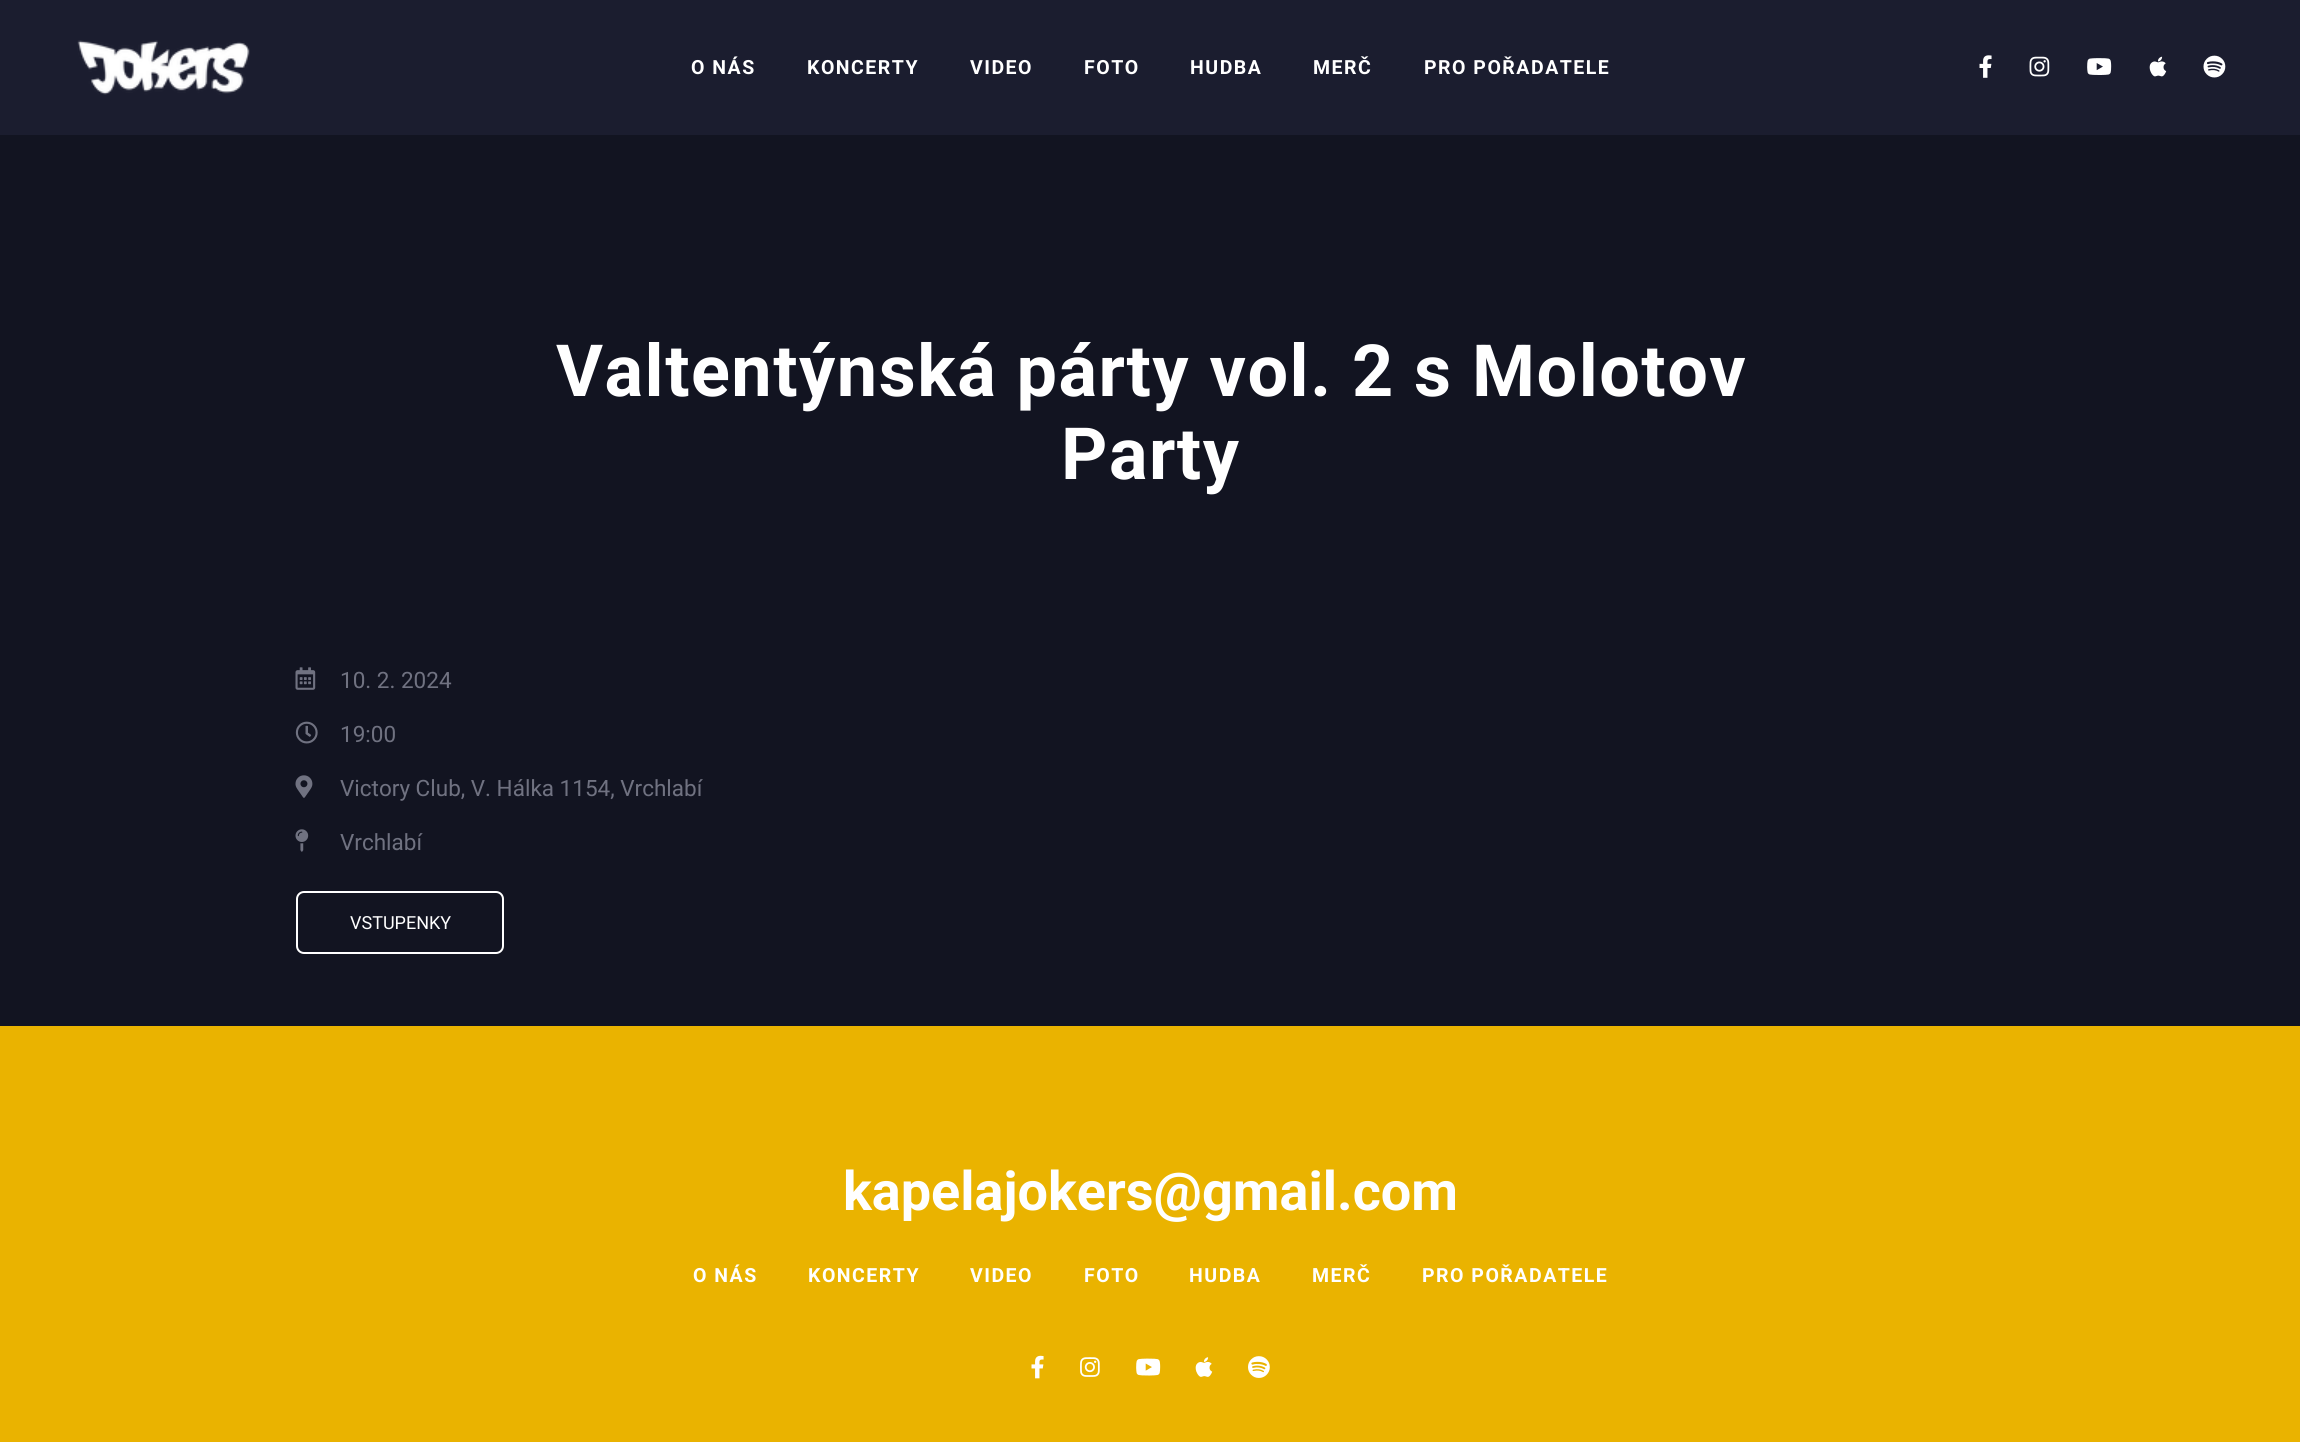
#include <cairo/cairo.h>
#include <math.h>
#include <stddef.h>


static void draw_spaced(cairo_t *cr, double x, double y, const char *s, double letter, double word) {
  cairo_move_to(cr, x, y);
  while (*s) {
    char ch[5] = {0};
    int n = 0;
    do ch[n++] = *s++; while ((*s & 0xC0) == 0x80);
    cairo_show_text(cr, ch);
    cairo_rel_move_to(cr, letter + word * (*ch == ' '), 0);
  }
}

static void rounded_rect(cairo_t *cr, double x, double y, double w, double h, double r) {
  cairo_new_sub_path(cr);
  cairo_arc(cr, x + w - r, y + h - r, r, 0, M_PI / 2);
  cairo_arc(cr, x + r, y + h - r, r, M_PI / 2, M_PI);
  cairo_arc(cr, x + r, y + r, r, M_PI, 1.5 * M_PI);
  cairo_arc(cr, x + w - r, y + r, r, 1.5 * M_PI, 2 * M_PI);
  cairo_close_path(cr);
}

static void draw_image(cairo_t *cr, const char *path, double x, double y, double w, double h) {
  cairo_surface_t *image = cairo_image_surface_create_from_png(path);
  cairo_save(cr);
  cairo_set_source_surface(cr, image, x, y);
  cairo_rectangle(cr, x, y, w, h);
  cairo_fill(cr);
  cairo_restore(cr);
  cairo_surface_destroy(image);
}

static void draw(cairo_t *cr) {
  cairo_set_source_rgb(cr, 18 / 255.0, 20 / 255.0, 33 / 255.0);
  cairo_paint(cr);
  cairo_set_source_rgb(cr, 27 / 255.0, 29 / 255.0, 47 / 255.0);
  cairo_rectangle(cr, 0, 0, 2300, 135);
  cairo_fill(cr);
  draw_image(cr, "images/1.png", 77, 40, 173, 55);
  draw_image(cr, "images/2.png", 1979, 55, 13, 23);
  draw_image(cr, "images/3.png", 2029, 56, 21, 21);
  draw_image(cr, "images/4.png", 2087, 58, 25, 17);
  draw_image(cr, "images/5.png", 2149, 56, 18, 21);
  draw_image(cr, "images/6.png", 2203, 55, 23, 23);
  draw_image(cr, "images/7.png", 295, 667, 21, 23);
  draw_image(cr, "images/8.png", 295, 721, 23, 23);
  draw_image(cr, "images/9.png", 295, 775, 18, 23);
  draw_image(cr, "images/10.png", 295, 829, 14, 23);
  rounded_rect(cr, 297, 892, 206, 61, 7);
  cairo_set_source_rgb(cr, 1, 1, 1);
  cairo_stroke(cr);
  cairo_set_source_rgb(cr, 234 / 255.0, 179 / 255.0, 0);
  cairo_rectangle(cr, 0, 1026, 2300, 416);
  cairo_fill(cr);
  draw_image(cr, "images/11.png", 1031, 1355, 13, 24);
  draw_image(cr, "images/12.png", 1080, 1357, 20, 20);
  draw_image(cr, "images/13.png", 1136, 1358, 25, 18);
  draw_image(cr, "images/14.png", 1195, 1357, 18, 20);
  draw_image(cr, "images/15.png", 1248, 1356, 22, 22);
  cairo_select_font_face(cr, "Roboto", CAIRO_FONT_SLANT_NORMAL, CAIRO_FONT_WEIGHT_BOLD);
  cairo_set_font_size(cr, 19.5);
  cairo_set_source_rgb(cr, 1, 1, 1);
  draw_spaced(cr, 691, 74, "O NÁS", 1.5, 0);
  draw_spaced(cr, 807, 74, "KONCERTY", 1.5, 0);
  draw_spaced(cr, 970, 74, "VIDEO", 1.5, 0);
  draw_spaced(cr, 1084, 74, "FOTO", 1.5, 0);
  draw_spaced(cr, 1190, 74, "HUDBA", 1.5, 0);
  draw_spaced(cr, 1313, 74, "MERČ", 1.5, 0);
  draw_spaced(cr, 1424, 74, "PRO POŘADATELE", 1.5, 0);
  cairo_set_font_size(cr, 72);
  draw_spaced(cr, 556, 396, "Valtentýnská párty vol. 2 s Molotov", 1.5, 0);
  draw_spaced(cr, 1061, 479, "Party", 1.5, 0);
  cairo_select_font_face(cr, "Roboto", CAIRO_FONT_SLANT_NORMAL, CAIRO_FONT_WEIGHT_NORMAL);
  cairo_set_font_size(cr, 22.5);
  cairo_set_source_rgb(cr, 112 / 255.0, 114 / 255.0, 129 / 255.0);
  cairo_move_to(cr, 340, 688);
  cairo_show_text(cr, "10. 2. 2024");
  cairo_move_to(cr, 340, 742);
  cairo_show_text(cr, "19:00");
  cairo_move_to(cr, 340, 796);
  cairo_show_text(cr, "Victory Club, V. Hálka 1154, Vrchlabí");
  cairo_move_to(cr, 340, 850);
  cairo_show_text(cr, "Vrchlabí");
  cairo_set_font_size(cr, 18);
  cairo_set_source_rgb(cr, 1, 1, 1);
  cairo_move_to(cr, 350, 929);
  cairo_show_text(cr, "VSTUPENKY");
  cairo_select_font_face(cr, "Roboto", CAIRO_FONT_SLANT_NORMAL, CAIRO_FONT_WEIGHT_BOLD);
  cairo_set_font_size(cr, 54);
  cairo_move_to(cr, 843, 1210);
  cairo_show_text(cr, "kapelajokers@gmail.com");
  cairo_set_font_size(cr, 19.5);
  draw_spaced(cr, 693, 1282, "O NÁS", 1.5, 0);
  draw_spaced(cr, 808, 1282, "KONCERTY", 1.5, 0);
  draw_spaced(cr, 970, 1282, "VIDEO", 1.5, 0);
  draw_spaced(cr, 1084, 1282, "FOTO", 1.5, 0);
  draw_spaced(cr, 1189, 1282, "HUDBA", 1.5, 0);
  draw_spaced(cr, 1312, 1282, "MERČ", 1.5, 0);
  draw_spaced(cr, 1422, 1282, "PRO POŘADATELE", 1.5, 0);
}

int main(void) {
  cairo_surface_t *surface = cairo_image_surface_create(CAIRO_FORMAT_RGB24, 2300, 1442);
  cairo_t *cr = cairo_create(surface);
  cairo_font_options_t *options = cairo_font_options_create();
  cairo_font_options_set_hint_metrics(options, CAIRO_HINT_METRICS_OFF);
  cairo_font_options_set_hint_style(options, CAIRO_HINT_STYLE_NONE);
  cairo_set_font_options(cr, options);
  cairo_set_miter_limit(cr, 4);
  draw(cr);
  cairo_surface_write_to_png(surface, "out.png");
  cairo_font_options_destroy(options);
  cairo_destroy(cr);
  cairo_surface_destroy(surface);
  return 0;
}
